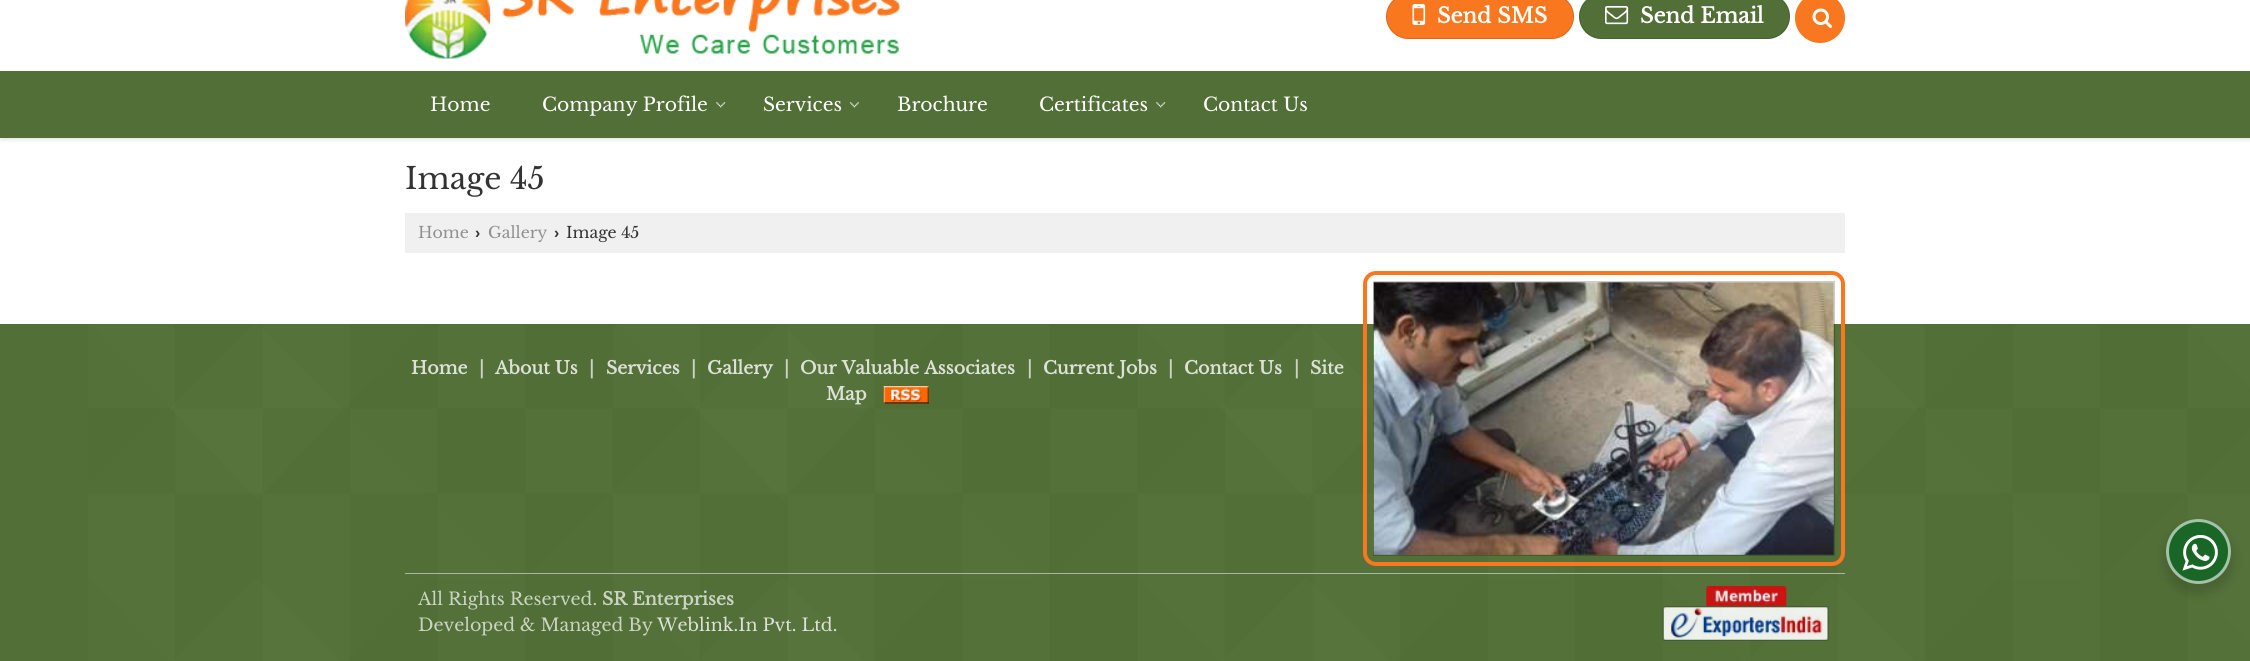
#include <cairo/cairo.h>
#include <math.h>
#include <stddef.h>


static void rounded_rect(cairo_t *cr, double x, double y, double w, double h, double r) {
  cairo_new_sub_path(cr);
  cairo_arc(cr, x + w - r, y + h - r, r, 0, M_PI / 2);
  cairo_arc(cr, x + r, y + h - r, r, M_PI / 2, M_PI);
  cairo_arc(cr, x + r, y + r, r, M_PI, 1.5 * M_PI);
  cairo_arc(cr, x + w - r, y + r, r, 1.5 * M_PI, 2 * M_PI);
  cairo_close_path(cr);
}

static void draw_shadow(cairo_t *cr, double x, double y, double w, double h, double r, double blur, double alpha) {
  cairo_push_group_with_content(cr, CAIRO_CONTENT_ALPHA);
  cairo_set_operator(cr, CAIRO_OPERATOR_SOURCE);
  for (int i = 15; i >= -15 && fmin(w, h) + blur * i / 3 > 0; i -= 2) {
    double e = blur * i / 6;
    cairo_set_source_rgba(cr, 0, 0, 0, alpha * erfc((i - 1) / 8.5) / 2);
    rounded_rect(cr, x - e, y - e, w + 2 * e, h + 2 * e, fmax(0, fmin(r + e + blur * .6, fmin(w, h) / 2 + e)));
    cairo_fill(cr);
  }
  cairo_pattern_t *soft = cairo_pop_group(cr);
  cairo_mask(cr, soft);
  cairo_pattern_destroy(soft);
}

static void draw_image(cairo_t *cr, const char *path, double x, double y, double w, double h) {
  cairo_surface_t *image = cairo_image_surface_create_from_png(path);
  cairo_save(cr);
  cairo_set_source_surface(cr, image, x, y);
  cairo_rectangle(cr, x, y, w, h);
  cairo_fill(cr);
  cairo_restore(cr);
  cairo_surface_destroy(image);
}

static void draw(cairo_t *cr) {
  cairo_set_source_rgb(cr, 1, 1, 1);
  cairo_paint(cr);
  cairo_save(cr);
  cairo_rectangle(cr, 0, 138, 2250, 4);
  cairo_clip(cr);
  cairo_set_source_rgb(cr, 0, 0, 0);
  draw_shadow(cr, 1, -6, 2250, 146, 0, 2, 0.1);
  cairo_restore(cr);
  draw_image(cr, "images/1.png", 405, 0, 495, 59);
  cairo_set_source_rgb(cr, 249 / 255.0, 119 / 255.0, 31 / 255.0);
  rounded_rect(cr, 1386, -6, 188, 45, 22.5);
  cairo_fill(cr);
  rounded_rect(cr, 1386.5, -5.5, 187, 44, 22);
  cairo_set_source_rgba(cr, 0, 0, 0, 0.13);
  cairo_set_line_width(cr, 1);
  cairo_stroke(cr);
  draw_image(cr, "images/2.png", 1412, 4, 14, 21);
  cairo_set_source_rgb(cr, 81 / 255.0, 111 / 255.0, 54 / 255.0);
  rounded_rect(cr, 1579, -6, 211, 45, 22.5);
  cairo_fill(cr);
  rounded_rect(cr, 1579.5, -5.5, 210, 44, 22);
  cairo_set_source_rgba(cr, 0, 0, 0, 0.13);
  cairo_stroke(cr);
  draw_image(cr, "images/3.png", 1605, 6, 24, 19);
  cairo_set_source_rgb(cr, 249 / 255.0, 119 / 255.0, 31 / 255.0);
  cairo_arc(cr, 1820, 18, 25, 0, 2 * M_PI);
  cairo_fill(cr);
  draw_image(cr, "images/4.png", 1812, 8, 20, 20);
  cairo_set_source_rgb(cr, 81 / 255.0, 111 / 255.0, 54 / 255.0);
  cairo_rectangle(cr, 0, 71, 2250, 67);
  cairo_fill(cr);
  draw_image(cr, "images/5.png", 716, 102, 10, 6);
  draw_image(cr, "images/6.png", 849, 102, 10, 6);
  draw_image(cr, "images/5.png", 1156, 102, 10, 6);
  cairo_set_source_rgb(cr, 240 / 255.0, 240 / 255.0, 240 / 255.0);
  cairo_rectangle(cr, 405, 213, 1440, 40);
  cairo_fill(cr);
  cairo_set_source_rgb(cr, 81 / 255.0, 111 / 255.0, 54 / 255.0);
  cairo_rectangle(cr, 0, 324, 2250, 337);
  cairo_fill(cr);
  draw_image(cr, "images/8.png", 88, 324, 2162, 337);
  rounded_rect(cr, 1365, 273, 478, 291, 11);
  cairo_set_source_rgb(cr, 249 / 255.0, 119 / 255.0, 31 / 255.0);
  cairo_set_line_width(cr, 4);
  cairo_stroke(cr);
  cairo_rectangle(cr, 1373.5, 281.5, 461, 274);
  cairo_set_source_rgba(cr, 0, 0, 0, 0.2);
  cairo_set_line_width(cr, 1);
  cairo_stroke(cr);
  draw_image(cr, "images/7.png", 1373, 282, 461, 273);
  draw_image(cr, "images/9.png", 883, 386, 46, 18);
  cairo_set_source_rgba(cr, 1, 1, 1, 0.5);
  cairo_rectangle(cr, 405, 573, 1440, 1);
  cairo_fill(cr);
  draw_image(cr, "images/10.png", 1662, 586, 167, 55);
  cairo_set_source_rgb(cr, 0, 0, 0);
  draw_shadow(cr, 2164, 524, 70, 70, 35, 5, 0.14);
  cairo_set_source_rgb(cr, 25 / 255.0, 102 / 255.0, 38 / 255.0);
  cairo_arc(cr, 2198.5, 551.5, 32.5, 0, 2 * M_PI);
  cairo_fill(cr);
  cairo_arc(cr, 2198.5, 551.5, 31, 0, 2 * M_PI);
  cairo_set_source_rgba(cr, 1, 1, 1, 0.6);
  cairo_set_line_width(cr, 3);
  cairo_stroke(cr);
  draw_image(cr, "images/11.png", 2182, 534, 36, 37);
  cairo_select_font_face(cr, "Libre Baskerville", CAIRO_FONT_SLANT_NORMAL, CAIRO_FONT_WEIGHT_BOLD);
  cairo_set_font_size(cr, 21);
  cairo_set_source_rgb(cr, 1, 1, 1);
  cairo_move_to(cr, 1437, 23);
  cairo_show_text(cr, "Send SMS");
  cairo_move_to(cr, 1640, 23);
  cairo_show_text(cr, "Send Email");
  cairo_select_font_face(cr, "Libre Baskerville", CAIRO_FONT_SLANT_NORMAL, CAIRO_FONT_WEIGHT_NORMAL);
  cairo_set_font_size(cr, 18.75);
  cairo_move_to(cr, 430, 111);
  cairo_show_text(cr, "Home");
  cairo_move_to(cr, 542, 111);
  cairo_show_text(cr, "Company Profile");
  cairo_move_to(cr, 763, 111);
  cairo_show_text(cr, "Services");
  cairo_move_to(cr, 897, 111);
  cairo_show_text(cr, "Brochure");
  cairo_move_to(cr, 1039, 111);
  cairo_show_text(cr, "Certificates");
  cairo_move_to(cr, 1203, 111);
  cairo_show_text(cr, "Contact Us");
  cairo_set_font_size(cr, 30);
  cairo_set_source_rgb(cr, 51 / 255.0, 51 / 255.0, 51 / 255.0);
  cairo_move_to(cr, 405, 189);
  cairo_show_text(cr, "Image 45");
  cairo_set_font_size(cr, 15.75);
  cairo_set_source_rgb(cr, 144 / 255.0, 144 / 255.0, 144 / 255.0);
  cairo_move_to(cr, 418, 238);
  cairo_show_text(cr, "Home");
  cairo_select_font_face(cr, "Liberation Sans", CAIRO_FONT_SLANT_NORMAL, CAIRO_FONT_WEIGHT_BOLD);
  cairo_set_source_rgb(cr, 51 / 255.0, 51 / 255.0, 51 / 255.0);
  cairo_move_to(cr, 475, 238);
  cairo_show_text(cr, "›");
  cairo_select_font_face(cr, "Libre Baskerville", CAIRO_FONT_SLANT_NORMAL, CAIRO_FONT_WEIGHT_NORMAL);
  cairo_set_source_rgb(cr, 144 / 255.0, 144 / 255.0, 144 / 255.0);
  cairo_move_to(cr, 488, 238);
  cairo_show_text(cr, "Gallery");
  cairo_select_font_face(cr, "Liberation Sans", CAIRO_FONT_SLANT_NORMAL, CAIRO_FONT_WEIGHT_BOLD);
  cairo_set_source_rgb(cr, 51 / 255.0, 51 / 255.0, 51 / 255.0);
  cairo_move_to(cr, 554, 238);
  cairo_show_text(cr, "›");
  cairo_select_font_face(cr, "Libre Baskerville", CAIRO_FONT_SLANT_NORMAL, CAIRO_FONT_WEIGHT_NORMAL);
  cairo_move_to(cr, 566, 238);
  cairo_show_text(cr, "Image 45");
  cairo_select_font_face(cr, "Libre Baskerville", CAIRO_FONT_SLANT_NORMAL, CAIRO_FONT_WEIGHT_BOLD);
  cairo_set_font_size(cr, 17.5);
  cairo_set_source_rgb(cr, 220 / 255.0, 226 / 255.0, 215 / 255.0);
  cairo_move_to(cr, 411, 374);
  cairo_show_text(cr, "Home");
  cairo_set_source_rgb(cr, 203 / 255.0, 212 / 255.0, 195 / 255.0);
  cairo_move_to(cr, 479, 374);
  cairo_show_text(cr, "|");
  cairo_set_source_rgb(cr, 220 / 255.0, 226 / 255.0, 215 / 255.0);
  cairo_move_to(cr, 495, 374);
  cairo_show_text(cr, "About Us");
  cairo_set_source_rgb(cr, 203 / 255.0, 212 / 255.0, 195 / 255.0);
  cairo_move_to(cr, 589, 374);
  cairo_show_text(cr, "|");
  cairo_set_source_rgb(cr, 220 / 255.0, 226 / 255.0, 215 / 255.0);
  cairo_move_to(cr, 606, 374);
  cairo_show_text(cr, "Services");
  cairo_set_source_rgb(cr, 203 / 255.0, 212 / 255.0, 195 / 255.0);
  cairo_move_to(cr, 691, 374);
  cairo_show_text(cr, "|");
  cairo_set_source_rgb(cr, 220 / 255.0, 226 / 255.0, 215 / 255.0);
  cairo_move_to(cr, 707, 374);
  cairo_show_text(cr, "Gallery");
  cairo_set_source_rgb(cr, 203 / 255.0, 212 / 255.0, 195 / 255.0);
  cairo_move_to(cr, 784, 374);
  cairo_show_text(cr, "|");
  cairo_set_source_rgb(cr, 220 / 255.0, 226 / 255.0, 215 / 255.0);
  cairo_move_to(cr, 800, 374);
  cairo_show_text(cr, "Our Valuable Associates");
  cairo_set_source_rgb(cr, 203 / 255.0, 212 / 255.0, 195 / 255.0);
  cairo_move_to(cr, 1027, 374);
  cairo_show_text(cr, "|");
  cairo_set_source_rgb(cr, 220 / 255.0, 226 / 255.0, 215 / 255.0);
  cairo_move_to(cr, 1043, 374);
  cairo_show_text(cr, "Current Jobs");
  cairo_set_source_rgb(cr, 203 / 255.0, 212 / 255.0, 195 / 255.0);
  cairo_move_to(cr, 1168, 374);
  cairo_show_text(cr, "|");
  cairo_set_source_rgb(cr, 220 / 255.0, 226 / 255.0, 215 / 255.0);
  cairo_move_to(cr, 1184, 374);
  cairo_show_text(cr, "Contact Us");
  cairo_set_source_rgb(cr, 203 / 255.0, 212 / 255.0, 195 / 255.0);
  cairo_move_to(cr, 1294, 374);
  cairo_show_text(cr, "|");
  cairo_set_source_rgb(cr, 220 / 255.0, 226 / 255.0, 215 / 255.0);
  cairo_move_to(cr, 1310, 374);
  cairo_show_text(cr, "Site");
  cairo_move_to(cr, 826, 400);
  cairo_show_text(cr, "Map");
  cairo_select_font_face(cr, "Libre Baskerville", CAIRO_FONT_SLANT_NORMAL, CAIRO_FONT_WEIGHT_NORMAL);
  cairo_set_source_rgb(cr, 203 / 255.0, 212 / 255.0, 195 / 255.0);
  cairo_move_to(cr, 418, 605);
  cairo_show_text(cr, "All Rights Reserved.");
  cairo_select_font_face(cr, "Libre Baskerville", CAIRO_FONT_SLANT_NORMAL, CAIRO_FONT_WEIGHT_BOLD);
  cairo_move_to(cr, 602, 605);
  cairo_show_text(cr, "SR Enterprises");
  cairo_select_font_face(cr, "Libre Baskerville", CAIRO_FONT_SLANT_NORMAL, CAIRO_FONT_WEIGHT_NORMAL);
  cairo_move_to(cr, 418, 631);
  cairo_show_text(cr, "Developed & Managed By");
  cairo_set_source_rgb(cr, 220 / 255.0, 226 / 255.0, 215 / 255.0);
  cairo_move_to(cr, 657, 631);
  cairo_show_text(cr, "Weblink.In Pvt. Ltd.");
}

int main(void) {
  cairo_surface_t *surface = cairo_image_surface_create(CAIRO_FORMAT_RGB24, 2250, 661);
  cairo_t *cr = cairo_create(surface);
  cairo_font_options_t *options = cairo_font_options_create();
  cairo_font_options_set_hint_metrics(options, CAIRO_HINT_METRICS_OFF);
  cairo_font_options_set_hint_style(options, CAIRO_HINT_STYLE_NONE);
  cairo_set_font_options(cr, options);
  cairo_set_miter_limit(cr, 4);
  draw(cr);
  cairo_surface_write_to_png(surface, "out.png");
  cairo_font_options_destroy(options);
  cairo_destroy(cr);
  cairo_surface_destroy(surface);
  return 0;
}
